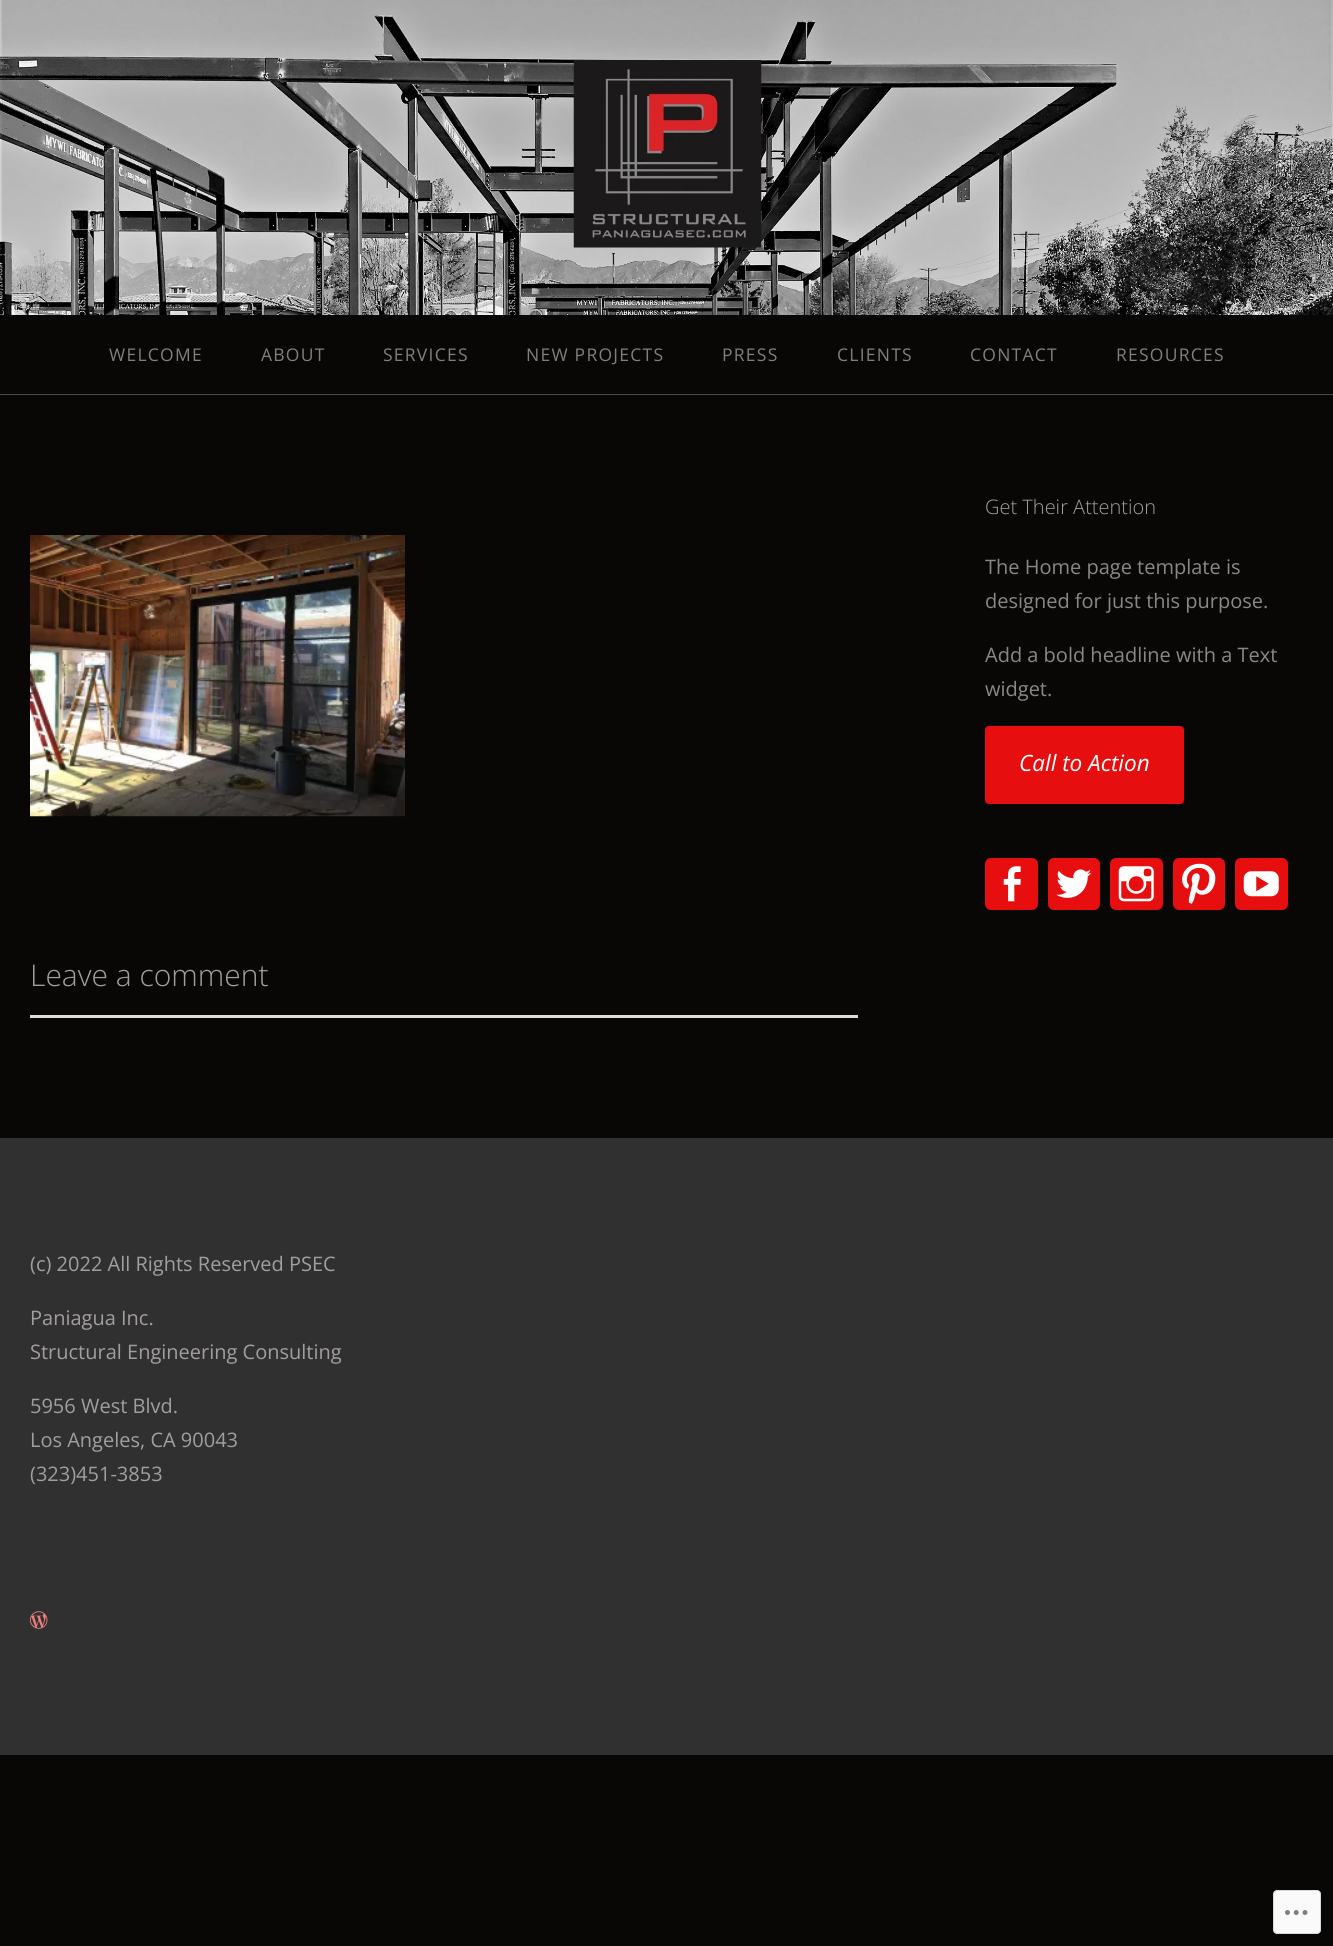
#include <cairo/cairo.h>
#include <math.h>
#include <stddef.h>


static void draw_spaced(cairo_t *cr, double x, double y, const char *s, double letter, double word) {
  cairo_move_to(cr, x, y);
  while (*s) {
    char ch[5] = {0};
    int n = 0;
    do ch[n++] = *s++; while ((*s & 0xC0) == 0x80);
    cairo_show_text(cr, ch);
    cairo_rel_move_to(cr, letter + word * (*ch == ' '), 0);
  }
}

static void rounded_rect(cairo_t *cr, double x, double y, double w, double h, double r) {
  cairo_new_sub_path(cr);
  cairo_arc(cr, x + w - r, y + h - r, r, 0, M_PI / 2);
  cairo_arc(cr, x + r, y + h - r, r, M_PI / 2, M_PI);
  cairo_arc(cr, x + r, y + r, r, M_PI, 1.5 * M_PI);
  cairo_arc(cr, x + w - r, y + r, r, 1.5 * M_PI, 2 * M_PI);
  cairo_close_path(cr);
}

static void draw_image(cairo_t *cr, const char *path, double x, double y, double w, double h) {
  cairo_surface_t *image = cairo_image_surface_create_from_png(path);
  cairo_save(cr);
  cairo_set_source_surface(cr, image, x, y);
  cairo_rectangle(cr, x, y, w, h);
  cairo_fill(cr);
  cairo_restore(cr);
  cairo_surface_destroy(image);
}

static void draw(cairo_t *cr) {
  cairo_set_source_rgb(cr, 9 / 255.0, 6 / 255.0, 6 / 255.0);
  cairo_paint(cr);
  draw_image(cr, "images/1.png", 0, 0, 1333, 315);
  draw_image(cr, "images/2.png", 573, 60, 189, 188);
  cairo_set_source_rgb(cr, 73 / 255.0, 71 / 255.0, 71 / 255.0);
  cairo_rectangle(cr, 0, 394, 1333, 1);
  cairo_fill(cr);
  cairo_set_source_rgb(cr, 230 / 255.0, 14 / 255.0, 14 / 255.0);
  rounded_rect(cr, 985, 726, 199, 78, 4);
  cairo_fill(cr);
  rounded_rect(cr, 985, 858, 53, 52, 6);
  cairo_fill(cr);
  draw_image(cr, "images/3.png", 1003, 866, 18, 36);
  rounded_rect(cr, 1048, 858, 52, 52, 6);
  cairo_fill(cr);
  draw_image(cr, "images/4.png", 1056, 869, 36, 29);
  rounded_rect(cr, 1110, 858, 53, 52, 6);
  cairo_fill(cr);
  draw_image(cr, "images/5.png", 1118, 866, 36, 36);
  rounded_rect(cr, 1173, 858, 52, 52, 6);
  cairo_fill(cr);
  draw_image(cr, "images/6.png", 1182, 863, 34, 41);
  rounded_rect(cr, 1235, 858, 53, 52, 6);
  cairo_fill(cr);
  draw_image(cr, "images/7.png", 1243, 871, 36, 26);
  draw_image(cr, "images/8.png", 30, 535, 375, 282);
  cairo_set_source_rgb(cr, 220 / 255.0, 220 / 255.0, 222 / 255.0);
  cairo_rectangle(cr, 30, 1015, 828, 3);
  cairo_fill(cr);
  cairo_set_source_rgb(cr, 48 / 255.0, 48 / 255.0, 48 / 255.0);
  cairo_rectangle(cr, 0, 1138, 1333, 617);
  cairo_fill(cr);
  draw_image(cr, "images/9.png", 30, 1611, 18, 18);
  cairo_set_source_rgb(cr, 250 / 255.0, 250 / 255.0, 250 / 255.0);
  rounded_rect(cr, 1273.5, 1890.5, 47, 43, 3.5);
  cairo_fill_preserve(cr);
  cairo_set_source_rgb(cr, 216 / 255.0, 216 / 255.0, 218 / 255.0);
  cairo_set_line_width(cr, 1);
  cairo_stroke(cr);
  draw_image(cr, "images/10.png", 1285, 1910, 23, 5);
  cairo_select_font_face(cr, "Open Sans", CAIRO_FONT_SLANT_NORMAL, CAIRO_FONT_WEIGHT_NORMAL);
  cairo_set_font_size(cr, 17.5);
  cairo_set_source_rgb(cr, 127 / 255.0, 127 / 255.0, 127 / 255.0);
  draw_spaced(cr, 109, 361, "WELCOME", 1.25, 0);
  draw_spaced(cr, 261, 361, "ABOUT", 1.25, 0);
  draw_spaced(cr, 383, 361, "SERVICES", 1.25, 0);
  draw_spaced(cr, 526, 361, "NEW PROJECTS", 1.25, 0);
  draw_spaced(cr, 722, 361, "PRESS", 1.25, 0);
  draw_spaced(cr, 837, 361, "CLIENTS", 1.25, 0);
  draw_spaced(cr, 970, 361, "CONTACT", 1.25, 0);
  draw_spaced(cr, 1116, 361, "RESOURCES", 1.25, 0);
  cairo_select_font_face(cr, "Open Sans Light", CAIRO_FONT_SLANT_NORMAL, CAIRO_FONT_WEIGHT_NORMAL);
  cairo_set_font_size(cr, 20);
  cairo_set_source_rgb(cr, 163 / 255.0, 158 / 255.0, 158 / 255.0);
  cairo_move_to(cr, 985, 514);
  cairo_show_text(cr, "Get Their Attention");
  cairo_select_font_face(cr, "Open Sans", CAIRO_FONT_SLANT_NORMAL, CAIRO_FONT_WEIGHT_NORMAL);
  cairo_set_source_rgb(cr, 136 / 255.0, 136 / 255.0, 136 / 255.0);
  cairo_move_to(cr, 985, 574);
  cairo_show_text(cr, "The Home page template is");
  cairo_move_to(cr, 985, 608);
  cairo_show_text(cr, "designed for just this purpose.");
  cairo_move_to(cr, 985, 662);
  cairo_show_text(cr, "Add a bold headline with a Text");
  cairo_move_to(cr, 985, 696);
  cairo_show_text(cr, "widget.");
  cairo_select_font_face(cr, "Open Sans", CAIRO_FONT_SLANT_ITALIC, CAIRO_FONT_WEIGHT_NORMAL);
  cairo_set_font_size(cr, 22.5);
  cairo_set_source_rgb(cr, 1, 1, 1);
  cairo_move_to(cr, 1019, 771);
  cairo_show_text(cr, "Call to Action");
  cairo_select_font_face(cr, "Open Sans Light", CAIRO_FONT_SLANT_NORMAL, CAIRO_FONT_WEIGHT_NORMAL);
  cairo_set_font_size(cr, 30);
  cairo_set_source_rgb(cr, 163 / 255.0, 158 / 255.0, 158 / 255.0);
  cairo_move_to(cr, 30, 986);
  cairo_show_text(cr, "Leave a comment");
  cairo_select_font_face(cr, "Open Sans", CAIRO_FONT_SLANT_NORMAL, CAIRO_FONT_WEIGHT_NORMAL);
  cairo_set_font_size(cr, 20);
  cairo_move_to(cr, 30, 1271);
  cairo_show_text(cr, "(c) 2022 All Rights Reserved PSEC");
  cairo_move_to(cr, 30, 1325);
  cairo_show_text(cr, "Paniagua Inc.");
  cairo_move_to(cr, 30, 1359);
  cairo_show_text(cr, "Structural Engineering Consulting");
  cairo_move_to(cr, 30, 1413);
  cairo_show_text(cr, "5956 West Blvd.");
  cairo_move_to(cr, 30, 1447);
  cairo_show_text(cr, "Los Angeles, CA 90043");
  cairo_move_to(cr, 30, 1481);
  cairo_show_text(cr, "(323)451-3853");
}

int main(void) {
  cairo_surface_t *surface = cairo_image_surface_create(CAIRO_FORMAT_RGB24, 1333, 1946);
  cairo_t *cr = cairo_create(surface);
  cairo_font_options_t *options = cairo_font_options_create();
  cairo_font_options_set_hint_metrics(options, CAIRO_HINT_METRICS_OFF);
  cairo_font_options_set_hint_style(options, CAIRO_HINT_STYLE_NONE);
  cairo_set_font_options(cr, options);
  cairo_set_miter_limit(cr, 4);
  draw(cr);
  cairo_surface_write_to_png(surface, "out.png");
  cairo_font_options_destroy(options);
  cairo_destroy(cr);
  cairo_surface_destroy(surface);
  return 0;
}
